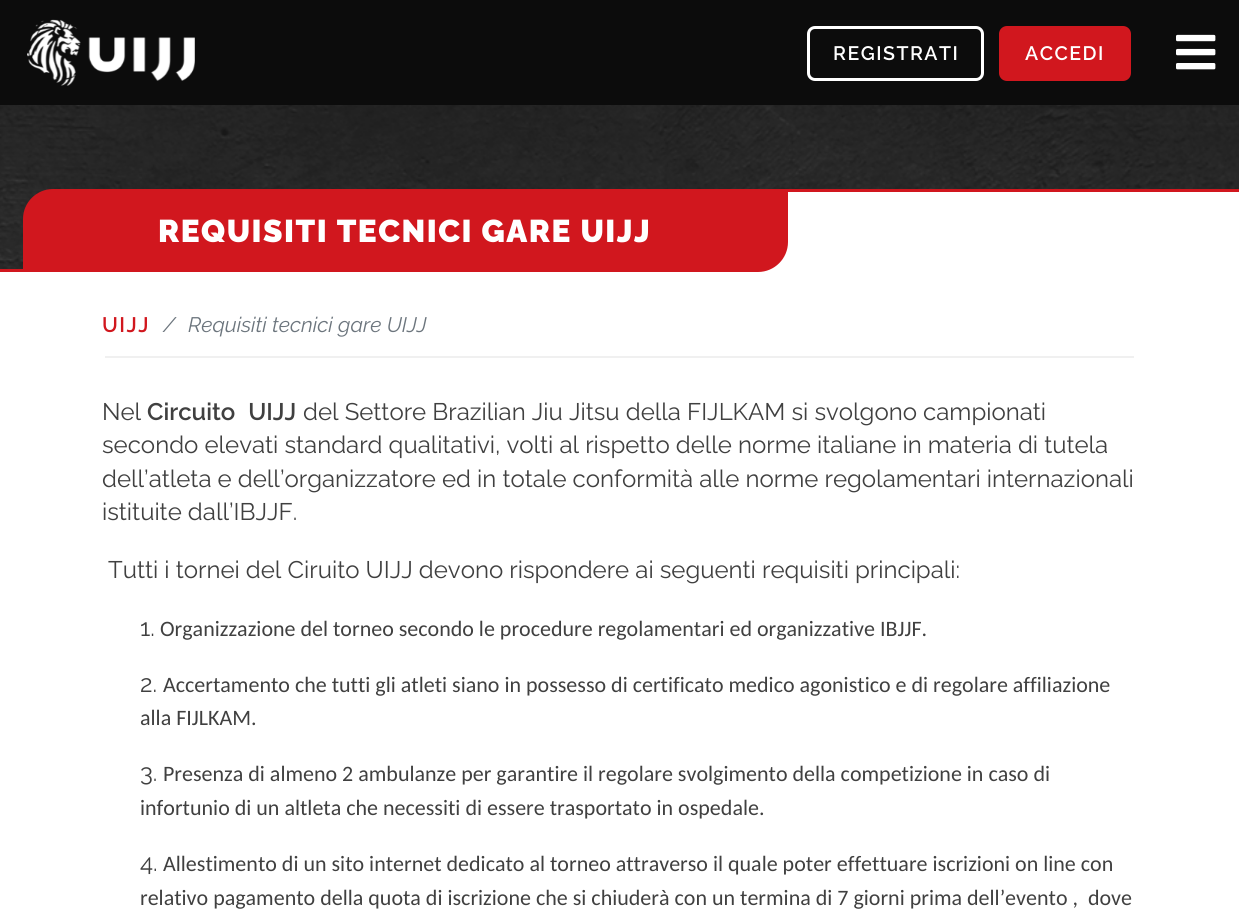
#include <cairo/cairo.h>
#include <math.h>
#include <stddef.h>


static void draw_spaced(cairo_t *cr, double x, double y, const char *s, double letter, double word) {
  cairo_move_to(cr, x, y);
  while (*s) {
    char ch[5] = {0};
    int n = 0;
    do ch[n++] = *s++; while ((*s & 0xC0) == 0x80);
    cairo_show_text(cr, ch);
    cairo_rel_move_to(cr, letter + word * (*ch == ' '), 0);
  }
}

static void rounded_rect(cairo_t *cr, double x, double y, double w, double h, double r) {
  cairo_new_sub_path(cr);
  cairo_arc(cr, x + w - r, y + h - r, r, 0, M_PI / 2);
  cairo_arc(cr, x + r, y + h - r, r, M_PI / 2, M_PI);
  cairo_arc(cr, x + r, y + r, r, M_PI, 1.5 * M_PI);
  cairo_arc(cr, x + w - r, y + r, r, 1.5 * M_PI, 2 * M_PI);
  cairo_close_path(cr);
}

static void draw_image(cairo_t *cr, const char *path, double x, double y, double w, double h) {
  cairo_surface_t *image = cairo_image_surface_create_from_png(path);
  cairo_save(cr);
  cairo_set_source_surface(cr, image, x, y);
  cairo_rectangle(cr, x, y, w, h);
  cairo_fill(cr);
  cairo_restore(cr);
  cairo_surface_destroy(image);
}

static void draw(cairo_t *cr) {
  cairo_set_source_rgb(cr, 1, 1, 1);
  cairo_paint(cr);
  cairo_set_source_rgb(cr, 12 / 255.0, 12 / 255.0, 12 / 255.0);
  cairo_rectangle(cr, 0, 0, 1239, 105);
  cairo_fill(cr);
  draw_image(cr, "images/1.png", 27, 19, 168, 67);
  rounded_rect(cr, 808.5, 27.5, 174, 52, 6.5);
  cairo_set_source_rgb(cr, 1, 1, 1);
  cairo_set_line_width(cr, 3);
  cairo_stroke(cr);
  cairo_set_source_rgb(cr, 209 / 255.0, 23 / 255.0, 30 / 255.0);
  rounded_rect(cr, 1000.5, 27.5, 129, 52, 6.5);
  cairo_fill_preserve(cr);
  cairo_stroke(cr);
  draw_image(cr, "images/2.png", 1176, 34, 40, 36);
  draw_image(cr, "images/3.png", 0, 105, 1239, 164);
  cairo_set_source_rgb(cr, 1, 1, 1);
  cairo_rectangle(cr, 768, 192, 471, 77);
  cairo_fill(cr);
  cairo_set_source_rgb(cr, 209 / 255.0, 23 / 255.0, 30 / 255.0);
  cairo_new_path(cr);
  cairo_move_to(cr, 53, 189);
  cairo_line_to(cr, 788, 189);
  cairo_line_to(cr, 788, 242);
  cairo_curve_to(cr, 788, 258.5, 774.5, 272, 758, 272);
  cairo_line_to(cr, 23, 272);
  cairo_line_to(cr, 23, 219);
  cairo_curve_to(cr, 23, 202.5, 36.5, 189, 53, 189);
  cairo_close_path(cr);
  cairo_fill(cr);
  cairo_rectangle(cr, 788, 189, 451, 3);
  cairo_fill(cr);
  cairo_rectangle(cr, 0, 269, 23, 3);
  cairo_fill(cr);
  cairo_set_source_rgb(cr, 240 / 255.0, 240 / 255.0, 240 / 255.0);
  cairo_rectangle(cr, 105, 356, 1029, 2);
  cairo_fill(cr);
  cairo_select_font_face(cr, "Raleway SemiBold", CAIRO_FONT_SLANT_NORMAL, CAIRO_FONT_WEIGHT_NORMAL);
  cairo_set_font_size(cr, 19.5);
  cairo_set_source_rgb(cr, 1, 1, 1);
  draw_spaced(cr, 833, 60, "REGISTRATI", 1.5, 0);
  draw_spaced(cr, 1025, 60, "ACCEDI", 1.5, 0);
  cairo_select_font_face(cr, "Raleway Black", CAIRO_FONT_SLANT_NORMAL, CAIRO_FONT_WEIGHT_NORMAL);
  cairo_set_font_size(cr, 31.5);
  draw_spaced(cr, 158, 242, "REQUISITI TECNICI GARE UIJJ", 1.5, 0);
  cairo_select_font_face(cr, "Raleway SemiBold", CAIRO_FONT_SLANT_NORMAL, CAIRO_FONT_WEIGHT_NORMAL);
  cairo_set_font_size(cr, 21);
  cairo_set_source_rgb(cr, 209 / 255.0, 23 / 255.0, 30 / 255.0);
  draw_spaced(cr, 102, 332, "UIJJ", 1.5, 0);
  cairo_select_font_face(cr, "Raleway Thin", CAIRO_FONT_SLANT_ITALIC, CAIRO_FONT_WEIGHT_NORMAL);
  cairo_set_source_rgb(cr, 108 / 255.0, 117 / 255.0, 125 / 255.0);
  cairo_move_to(cr, 163, 332);
  cairo_show_text(cr, "/");
  cairo_move_to(cr, 188, 332);
  cairo_show_text(cr, "Requisiti tecnici gare UIJJ");
  cairo_select_font_face(cr, "Raleway", CAIRO_FONT_SLANT_NORMAL, CAIRO_FONT_WEIGHT_NORMAL);
  cairo_set_font_size(cr, 24);
  cairo_set_source_rgb(cr, 64 / 255.0, 64 / 255.0, 64 / 255.0);
  cairo_move_to(cr, 102, 420);
  cairo_show_text(cr, "Nel");
  cairo_select_font_face(cr, "Raleway SemiBold", CAIRO_FONT_SLANT_NORMAL, CAIRO_FONT_WEIGHT_NORMAL);
  draw_spaced(cr, 147, 420, "Circuito UIJJ", 0, 7);
  cairo_select_font_face(cr, "Raleway", CAIRO_FONT_SLANT_NORMAL, CAIRO_FONT_WEIGHT_NORMAL);
  cairo_move_to(cr, 303, 420);
  cairo_show_text(cr, "del Settore Brazilian Jiu Jitsu della FIJLKAM si svolgono campionati");
  cairo_move_to(cr, 102, 453);
  cairo_show_text(cr, "secondo elevati standard qualitativi, volti al rispetto delle norme italiane in materia di tutela");
  cairo_move_to(cr, 102, 487);
  cairo_show_text(cr, "dell’atleta e dell’organizzatore ed in totale conformità alle norme regolamentari internazionali");
  cairo_move_to(cr, 102, 520);
  cairo_show_text(cr, "istituite dall’IBJJF.");
  cairo_move_to(cr, 108, 578);
  cairo_show_text(cr, "Tutti i tornei del Ciruito UIJJ devono rispondere ai seguenti requisiti principali:");
  cairo_move_to(cr, 140, 636);
  cairo_show_text(cr, "1.");
  cairo_select_font_face(cr, "Carlito", CAIRO_FONT_SLANT_NORMAL, CAIRO_FONT_WEIGHT_NORMAL);
  cairo_set_font_size(cr, 22);
  cairo_move_to(cr, 160, 636);
  cairo_show_text(cr, "Organizzazione del torneo secondo le procedure regolamentari ed organizzative IBJJF.");
  cairo_select_font_face(cr, "Raleway", CAIRO_FONT_SLANT_NORMAL, CAIRO_FONT_WEIGHT_NORMAL);
  cairo_set_font_size(cr, 24);
  cairo_move_to(cr, 140, 692);
  cairo_show_text(cr, "2.");
  cairo_select_font_face(cr, "Carlito", CAIRO_FONT_SLANT_NORMAL, CAIRO_FONT_WEIGHT_NORMAL);
  cairo_set_font_size(cr, 22);
  cairo_move_to(cr, 163, 692);
  cairo_show_text(cr, "Accertamento che tutti gli atleti siano in possesso di certificato medico agonistico e di regolare affiliazione");
  cairo_move_to(cr, 140, 725);
  cairo_show_text(cr, "alla FIJLKAM.");
  cairo_select_font_face(cr, "Raleway", CAIRO_FONT_SLANT_NORMAL, CAIRO_FONT_WEIGHT_NORMAL);
  cairo_set_font_size(cr, 24);
  cairo_move_to(cr, 140, 781);
  cairo_show_text(cr, "3.");
  cairo_select_font_face(cr, "Carlito", CAIRO_FONT_SLANT_NORMAL, CAIRO_FONT_WEIGHT_NORMAL);
  cairo_set_font_size(cr, 22);
  cairo_move_to(cr, 163, 781);
  cairo_show_text(cr, "Presenza di almeno 2 ambulanze per garantire il regolare svolgimento della competizione in caso di");
  cairo_move_to(cr, 140, 815);
  cairo_show_text(cr, "infortunio di un altleta che necessiti di essere trasportato in ospedale.");
  cairo_select_font_face(cr, "Raleway", CAIRO_FONT_SLANT_NORMAL, CAIRO_FONT_WEIGHT_NORMAL);
  cairo_set_font_size(cr, 24);
  cairo_move_to(cr, 140, 871);
  cairo_show_text(cr, "4.");
  cairo_select_font_face(cr, "Carlito", CAIRO_FONT_SLANT_NORMAL, CAIRO_FONT_WEIGHT_NORMAL);
  cairo_set_font_size(cr, 22);
  cairo_move_to(cr, 163, 871);
  cairo_show_text(cr, "Allestimento di un sito internet dedicato al torneo attraverso il quale poter effettuare iscrizioni on line con");
  cairo_move_to(cr, 140, 905);
  cairo_show_text(cr, "relativo pagamento della quota di iscrizione che si chiuderà con un termina di 7 giorni prima dell’evento ,  dove");
}

int main(void) {
  cairo_surface_t *surface = cairo_image_surface_create(CAIRO_FORMAT_RGB24, 1239, 911);
  cairo_t *cr = cairo_create(surface);
  cairo_font_options_t *options = cairo_font_options_create();
  cairo_font_options_set_hint_metrics(options, CAIRO_HINT_METRICS_OFF);
  cairo_font_options_set_hint_style(options, CAIRO_HINT_STYLE_NONE);
  cairo_set_font_options(cr, options);
  cairo_set_miter_limit(cr, 4);
  draw(cr);
  cairo_surface_write_to_png(surface, "out.png");
  cairo_font_options_destroy(options);
  cairo_destroy(cr);
  cairo_surface_destroy(surface);
  return 0;
}
